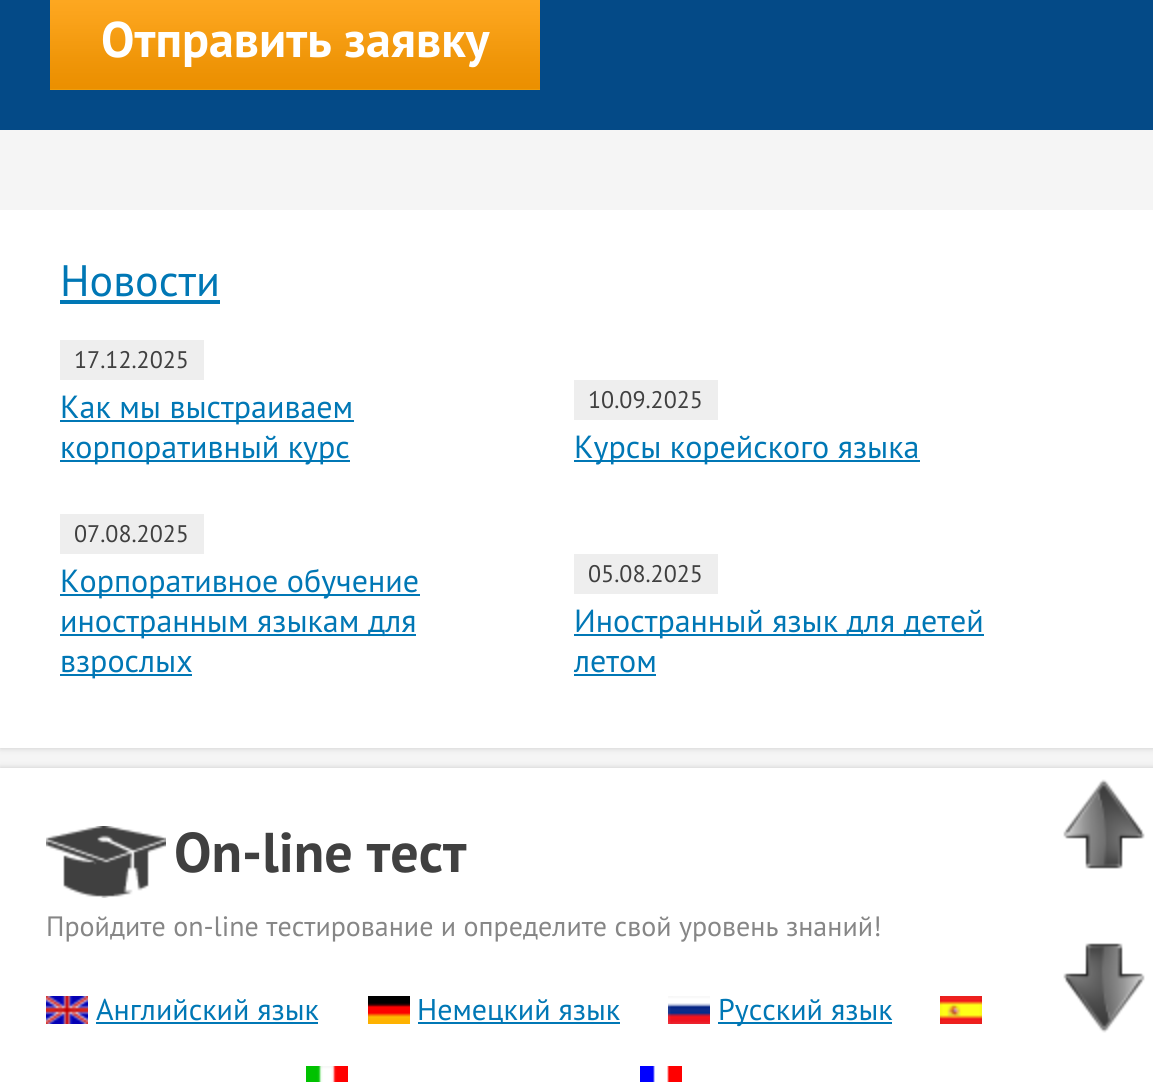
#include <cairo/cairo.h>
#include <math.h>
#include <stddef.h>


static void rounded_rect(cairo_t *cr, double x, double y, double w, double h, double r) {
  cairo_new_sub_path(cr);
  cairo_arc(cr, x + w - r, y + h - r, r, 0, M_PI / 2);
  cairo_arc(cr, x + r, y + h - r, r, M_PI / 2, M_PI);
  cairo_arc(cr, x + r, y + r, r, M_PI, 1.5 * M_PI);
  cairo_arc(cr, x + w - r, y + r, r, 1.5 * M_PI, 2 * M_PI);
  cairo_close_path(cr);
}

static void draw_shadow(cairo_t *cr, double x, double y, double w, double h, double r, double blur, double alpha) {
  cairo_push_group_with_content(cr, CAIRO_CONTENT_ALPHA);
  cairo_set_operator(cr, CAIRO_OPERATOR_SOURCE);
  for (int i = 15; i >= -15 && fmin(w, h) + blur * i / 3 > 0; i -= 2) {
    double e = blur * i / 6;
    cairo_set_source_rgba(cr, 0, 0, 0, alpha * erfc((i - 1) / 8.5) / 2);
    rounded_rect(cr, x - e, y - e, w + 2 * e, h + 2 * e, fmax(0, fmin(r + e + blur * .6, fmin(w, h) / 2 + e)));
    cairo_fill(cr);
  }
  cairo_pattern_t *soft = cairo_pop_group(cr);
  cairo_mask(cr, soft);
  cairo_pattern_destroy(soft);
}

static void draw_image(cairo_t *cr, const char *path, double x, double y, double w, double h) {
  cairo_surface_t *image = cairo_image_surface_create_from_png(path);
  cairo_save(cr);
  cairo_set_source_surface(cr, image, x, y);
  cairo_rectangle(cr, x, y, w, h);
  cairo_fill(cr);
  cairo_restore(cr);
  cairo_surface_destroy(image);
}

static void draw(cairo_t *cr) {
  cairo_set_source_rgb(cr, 4 / 255.0, 74 / 255.0, 135 / 255.0);
  cairo_paint(cr);
  draw_image(cr, "images/1.png", 50, 0, 490, 90);
  cairo_set_source_rgb(cr, 245 / 255.0, 245 / 255.0, 245 / 255.0);
  cairo_rectangle(cr, 0, 130, 1153, 638);
  cairo_fill(cr);
  cairo_save(cr);
  cairo_rectangle(cr, 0, 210, 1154, 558);
  cairo_clip(cr);
  cairo_set_source_rgb(cr, 202 / 255.0, 202 / 255.0, 202 / 255.0);
  draw_shadow(cr, 0, 210, 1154, 538, 0, 3, 1);
  cairo_restore(cr);
  cairo_set_source_rgb(cr, 1, 1, 1);
  cairo_rectangle(cr, 0, 210, 1153, 538);
  cairo_fill(cr);
  cairo_set_source_rgb(cr, 0, 119 / 255.0, 181 / 255.0);
  cairo_rectangle(cr, 60, 300, 160, 4);
  cairo_fill(cr);
  cairo_set_source_rgb(cr, 238 / 255.0, 238 / 255.0, 238 / 255.0);
  cairo_rectangle(cr, 60, 340, 144, 40);
  cairo_fill(cr);
  cairo_set_source_rgb(cr, 0, 119 / 255.0, 181 / 255.0);
  cairo_rectangle(cr, 60, 420, 294, 2);
  cairo_fill(cr);
  cairo_rectangle(cr, 60, 460, 290, 2);
  cairo_fill(cr);
  cairo_set_source_rgb(cr, 238 / 255.0, 238 / 255.0, 238 / 255.0);
  cairo_rectangle(cr, 574, 380, 144, 40);
  cairo_fill(cr);
  cairo_set_source_rgb(cr, 0, 119 / 255.0, 181 / 255.0);
  cairo_rectangle(cr, 574, 460, 346, 2);
  cairo_fill(cr);
  cairo_set_source_rgb(cr, 238 / 255.0, 238 / 255.0, 238 / 255.0);
  cairo_rectangle(cr, 60, 514, 144, 40);
  cairo_fill(cr);
  cairo_set_source_rgb(cr, 0, 119 / 255.0, 181 / 255.0);
  cairo_rectangle(cr, 60, 594, 360, 2);
  cairo_fill(cr);
  cairo_rectangle(cr, 60, 634, 356, 2);
  cairo_fill(cr);
  cairo_rectangle(cr, 60, 674, 132, 2);
  cairo_fill(cr);
  cairo_set_source_rgb(cr, 238 / 255.0, 238 / 255.0, 238 / 255.0);
  cairo_rectangle(cr, 574, 554, 144, 40);
  cairo_fill(cr);
  cairo_set_source_rgb(cr, 0, 119 / 255.0, 181 / 255.0);
  cairo_rectangle(cr, 574, 634, 410, 2);
  cairo_fill(cr);
  cairo_rectangle(cr, 574, 674, 82, 2);
  cairo_fill(cr);
  cairo_set_source_rgb(cr, 202 / 255.0, 202 / 255.0, 202 / 255.0);
  draw_shadow(cr, 0, 768, 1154, 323, 0, 3, 1);
  cairo_set_source_rgb(cr, 1, 1, 1);
  cairo_rectangle(cr, 0, 768, 1153, 314);
  cairo_fill(cr);
  draw_image(cr, "images/2.png", 46, 826, 120, 72);
  draw_image(cr, "images/3.png", 46, 996, 42, 28);
  cairo_set_source_rgb(cr, 0, 119 / 255.0, 181 / 255.0);
  cairo_rectangle(cr, 96, 1022, 222, 2);
  cairo_fill(cr);
  draw_image(cr, "images/4.png", 368, 996, 42, 28);
  cairo_rectangle(cr, 418, 1022, 202, 2);
  cairo_fill(cr);
  draw_image(cr, "images/5.png", 668, 996, 42, 28);
  cairo_rectangle(cr, 718, 1022, 174, 2);
  cairo_fill(cr);
  draw_image(cr, "images/6.png", 940, 996, 42, 28);
  draw_image(cr, "images/7.png", 306, 1066, 42, 16);
  draw_image(cr, "images/8.png", 640, 1066, 42, 16);
  draw_image(cr, "images/9.png", 1063, 779, 82, 90);
  draw_image(cr, "images/10.png", 1063, 943, 82, 90);
  cairo_select_font_face(cr, "PT Sans", CAIRO_FONT_SLANT_NORMAL, CAIRO_FONT_WEIGHT_BOLD);
  cairo_set_font_size(cr, 50);
  cairo_set_source_rgb(cr, 1, 1, 1);
  cairo_move_to(cr, 101, 57);
  cairo_show_text(cr, "Отправить заявку");
  cairo_select_font_face(cr, "PT Sans", CAIRO_FONT_SLANT_NORMAL, CAIRO_FONT_WEIGHT_NORMAL);
  cairo_set_font_size(cr, 44);
  cairo_set_source_rgb(cr, 0, 119 / 255.0, 181 / 255.0);
  cairo_move_to(cr, 60, 296);
  cairo_show_text(cr, "Новости");
  cairo_set_font_size(cr, 24);
  cairo_set_source_rgb(cr, 64 / 255.0, 64 / 255.0, 64 / 255.0);
  cairo_move_to(cr, 74, 368);
  cairo_show_text(cr, "17.12.2025");
  cairo_set_font_size(cr, 32);
  cairo_set_source_rgb(cr, 0, 119 / 255.0, 181 / 255.0);
  cairo_move_to(cr, 60, 418);
  cairo_show_text(cr, "Как мы выстраиваем");
  cairo_move_to(cr, 60, 458);
  cairo_show_text(cr, "корпоративный курс");
  cairo_set_font_size(cr, 24);
  cairo_set_source_rgb(cr, 64 / 255.0, 64 / 255.0, 64 / 255.0);
  cairo_move_to(cr, 588, 408);
  cairo_show_text(cr, "10.09.2025");
  cairo_set_font_size(cr, 32);
  cairo_set_source_rgb(cr, 0, 119 / 255.0, 181 / 255.0);
  cairo_move_to(cr, 574, 458);
  cairo_show_text(cr, "Курсы корейского языка");
  cairo_set_font_size(cr, 24);
  cairo_set_source_rgb(cr, 64 / 255.0, 64 / 255.0, 64 / 255.0);
  cairo_move_to(cr, 74, 542);
  cairo_show_text(cr, "07.08.2025");
  cairo_set_font_size(cr, 32);
  cairo_set_source_rgb(cr, 0, 119 / 255.0, 181 / 255.0);
  cairo_move_to(cr, 60, 592);
  cairo_show_text(cr, "Корпоративное обучение");
  cairo_move_to(cr, 60, 632);
  cairo_show_text(cr, "иностранным языкам для");
  cairo_move_to(cr, 60, 672);
  cairo_show_text(cr, "взрослых");
  cairo_set_font_size(cr, 24);
  cairo_set_source_rgb(cr, 64 / 255.0, 64 / 255.0, 64 / 255.0);
  cairo_move_to(cr, 588, 582);
  cairo_show_text(cr, "05.08.2025");
  cairo_set_font_size(cr, 32);
  cairo_set_source_rgb(cr, 0, 119 / 255.0, 181 / 255.0);
  cairo_move_to(cr, 574, 632);
  cairo_show_text(cr, "Иностранный язык для детей");
  cairo_move_to(cr, 574, 672);
  cairo_show_text(cr, "летом");
  cairo_select_font_face(cr, "PT Sans", CAIRO_FONT_SLANT_NORMAL, CAIRO_FONT_WEIGHT_BOLD);
  cairo_set_font_size(cr, 56);
  cairo_set_source_rgb(cr, 64 / 255.0, 64 / 255.0, 64 / 255.0);
  cairo_move_to(cr, 174, 872);
  cairo_show_text(cr, "On-line тест");
  cairo_select_font_face(cr, "PT Sans", CAIRO_FONT_SLANT_NORMAL, CAIRO_FONT_WEIGHT_NORMAL);
  cairo_set_font_size(cr, 28);
  cairo_set_source_rgb(cr, 134 / 255.0, 134 / 255.0, 134 / 255.0);
  cairo_move_to(cr, 46, 936);
  cairo_show_text(cr, "Пройдите on-line тестирование и определите свой уровень знаний!");
  cairo_set_font_size(cr, 30);
  cairo_set_source_rgb(cr, 0, 119 / 255.0, 181 / 255.0);
  cairo_move_to(cr, 96, 1020);
  cairo_show_text(cr, "Английский язык");
  cairo_move_to(cr, 417, 1020);
  cairo_show_text(cr, "Немецкий язык");
  cairo_move_to(cr, 718, 1020);
  cairo_show_text(cr, "Русский язык");
}

int main(void) {
  cairo_surface_t *surface = cairo_image_surface_create(CAIRO_FORMAT_RGB24, 1153, 1082);
  cairo_t *cr = cairo_create(surface);
  cairo_font_options_t *options = cairo_font_options_create();
  cairo_font_options_set_hint_metrics(options, CAIRO_HINT_METRICS_OFF);
  cairo_font_options_set_hint_style(options, CAIRO_HINT_STYLE_NONE);
  cairo_set_font_options(cr, options);
  cairo_set_miter_limit(cr, 4);
  draw(cr);
  cairo_surface_write_to_png(surface, "out.png");
  cairo_font_options_destroy(options);
  cairo_destroy(cr);
  cairo_surface_destroy(surface);
  return 0;
}
